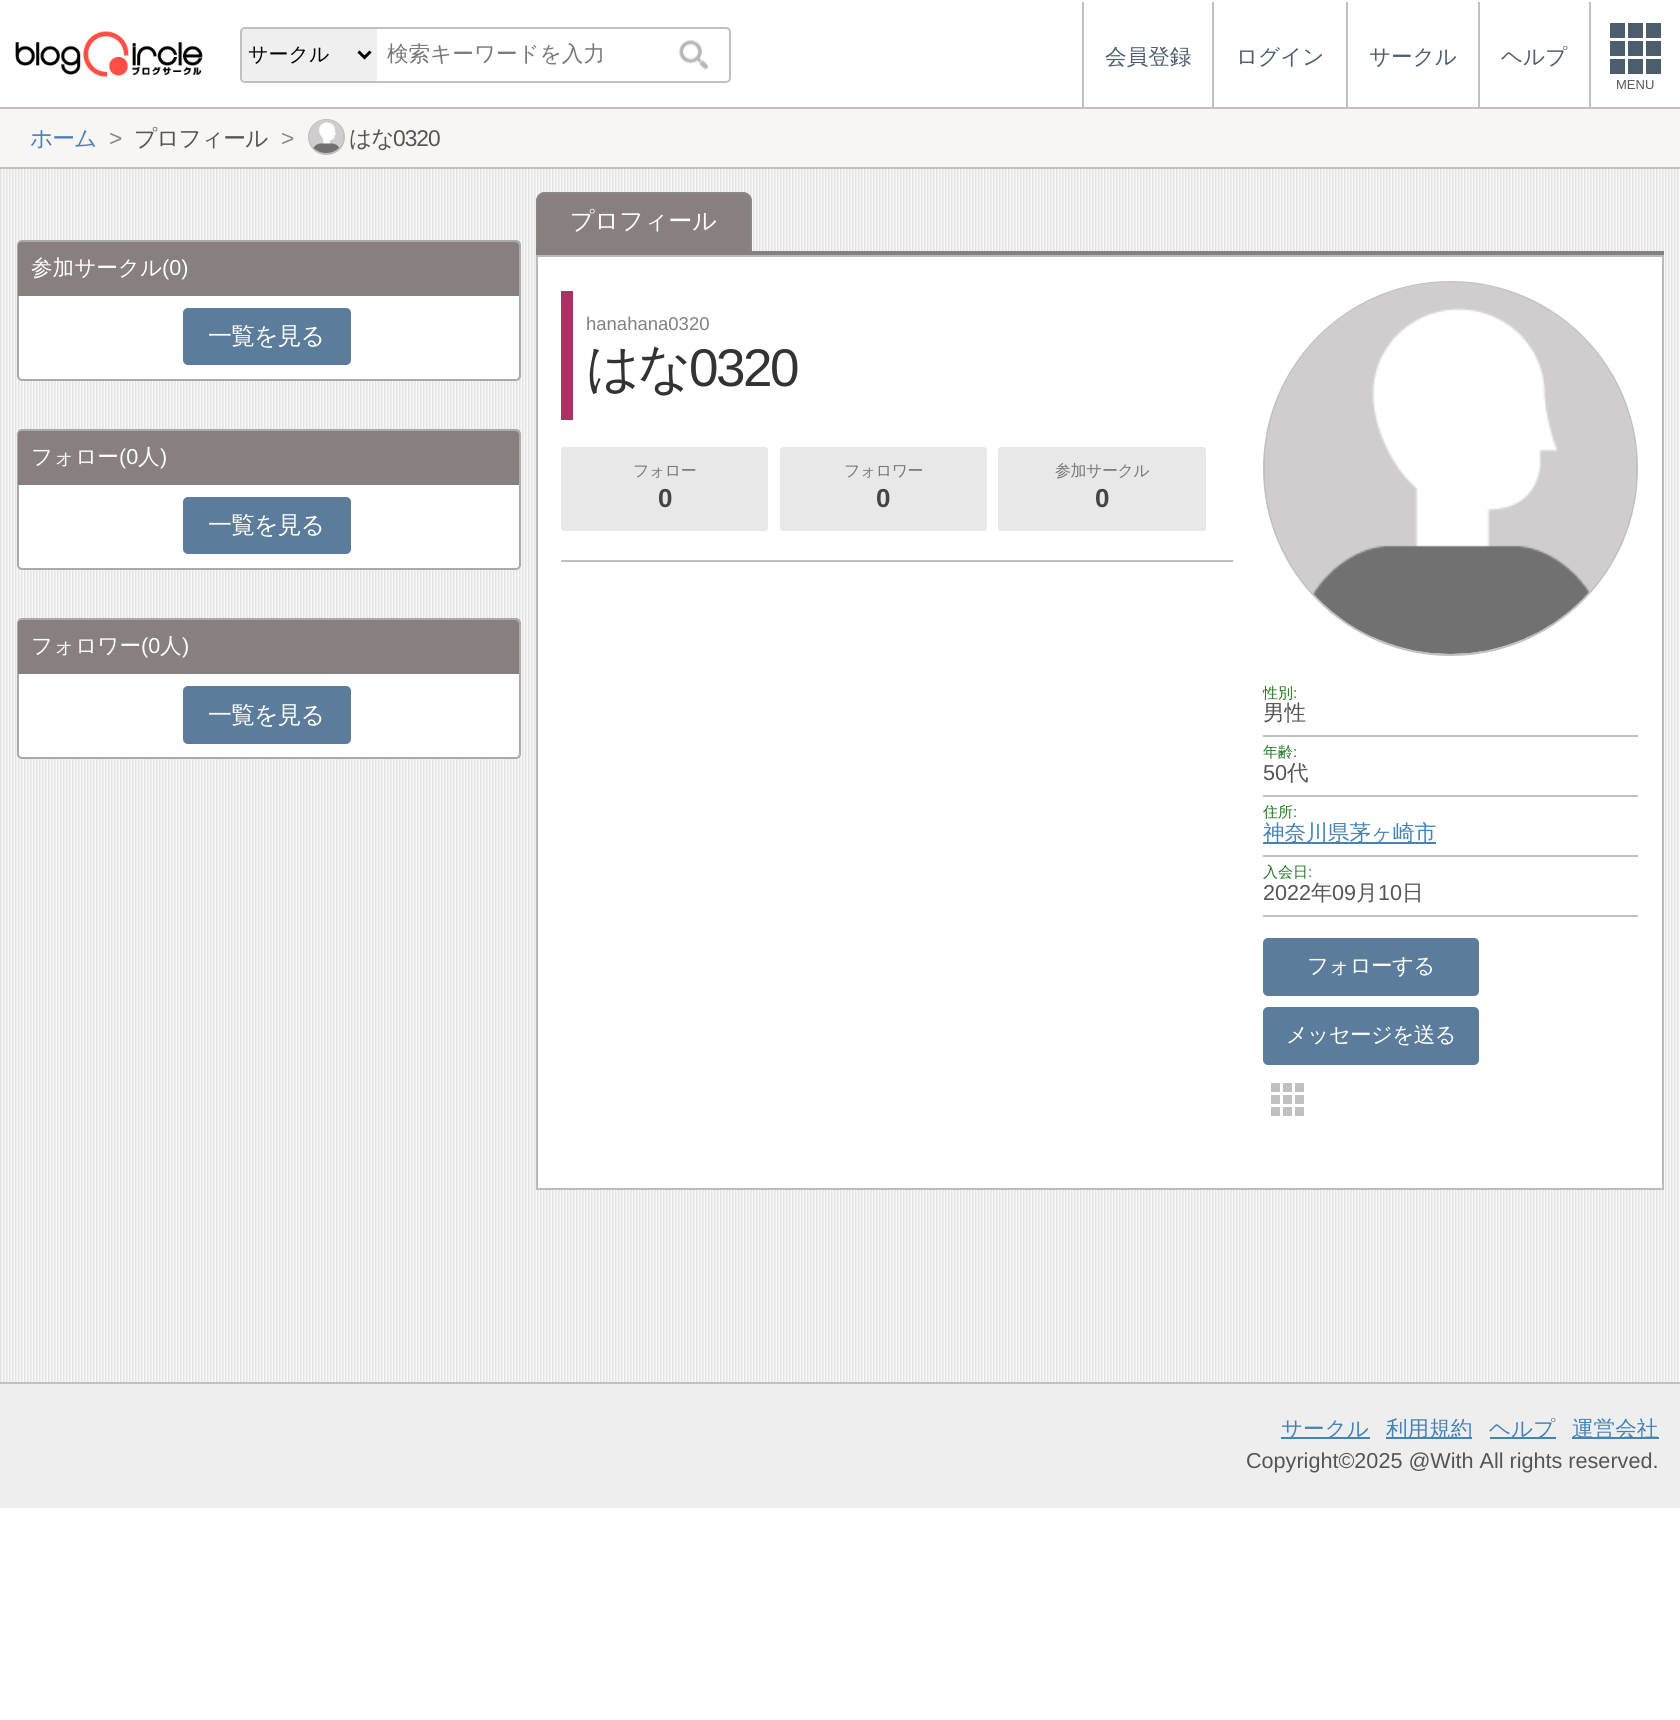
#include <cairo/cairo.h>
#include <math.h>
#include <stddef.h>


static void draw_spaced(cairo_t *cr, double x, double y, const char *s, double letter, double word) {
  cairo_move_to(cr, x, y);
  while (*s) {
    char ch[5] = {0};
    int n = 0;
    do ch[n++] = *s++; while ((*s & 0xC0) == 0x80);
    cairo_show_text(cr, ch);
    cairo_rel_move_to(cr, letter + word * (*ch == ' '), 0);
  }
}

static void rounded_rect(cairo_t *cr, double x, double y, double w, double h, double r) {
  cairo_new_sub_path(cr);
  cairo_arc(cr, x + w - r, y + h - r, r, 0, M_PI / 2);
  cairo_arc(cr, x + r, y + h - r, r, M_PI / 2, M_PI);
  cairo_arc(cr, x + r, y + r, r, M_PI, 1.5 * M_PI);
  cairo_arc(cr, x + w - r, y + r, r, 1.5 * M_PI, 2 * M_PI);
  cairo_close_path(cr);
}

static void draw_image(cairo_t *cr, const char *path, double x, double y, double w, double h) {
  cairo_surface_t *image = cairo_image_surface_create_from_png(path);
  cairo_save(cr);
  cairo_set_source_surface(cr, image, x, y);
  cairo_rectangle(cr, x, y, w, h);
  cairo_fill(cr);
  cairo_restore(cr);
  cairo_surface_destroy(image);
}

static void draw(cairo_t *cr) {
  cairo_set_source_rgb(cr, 1, 1, 1);
  cairo_paint(cr);
  draw_image(cr, "images/1.png", 0, 169, 1680, 1213);
  cairo_set_source_rgb(cr, 192 / 255.0, 192 / 255.0, 192 / 255.0);
  cairo_rectangle(cr, 0, 107, 1680, 2);
  cairo_fill(cr);
  draw_image(cr, "images/2.png", 15, 31, 188, 46);
  rounded_rect(cr, 241, 28, 489, 54, 4);
  cairo_stroke(cr);
  cairo_set_source_rgb(cr, 239 / 255.0, 239 / 255.0, 239 / 255.0);
  cairo_new_path(cr);
  cairo_move_to(cr, 245, 29);
  cairo_line_to(cr, 377, 29);
  cairo_line_to(cr, 377, 81);
  cairo_line_to(cr, 245, 81);
  cairo_curve_to(cr, 243.5, 81, 242, 79.5, 242, 78);
  cairo_line_to(cr, 242, 32);
  cairo_curve_to(cr, 242, 30.5, 243.5, 29, 245, 29);
  cairo_close_path(cr);
  cairo_fill(cr);
  cairo_new_path(cr);
  cairo_move_to(cr, 358.5, 51.5);
  cairo_line_to(cr, 364.5, 57.5);
  cairo_line_to(cr, 370.5, 51.5);
  cairo_set_source_rgb(cr, 0, 0, 0);
  cairo_set_line_width(cr, 3);
  cairo_stroke(cr);
  draw_image(cr, "images/3.png", 679, 40, 29, 30);
  cairo_set_source_rgb(cr, 192 / 255.0, 192 / 255.0, 192 / 255.0);
  cairo_rectangle(cr, 1082, 2, 2, 105);
  cairo_fill(cr);
  cairo_rectangle(cr, 1212, 2, 2, 105);
  cairo_fill(cr);
  cairo_rectangle(cr, 1346, 2, 2, 105);
  cairo_fill(cr);
  cairo_rectangle(cr, 1478, 2, 2, 105);
  cairo_fill(cr);
  cairo_rectangle(cr, 1589, 2, 2, 105);
  cairo_fill(cr);
  cairo_set_source_rgb(cr, 76 / 255.0, 94 / 255.0, 109 / 255.0);
  cairo_rectangle(cr, 1610, 23, 51, 15);
  cairo_fill(cr);
  cairo_set_source_rgb(cr, 1, 1, 1);
  cairo_rectangle(cr, 1643, 23, 3, 15);
  cairo_fill(cr);
  cairo_rectangle(cr, 1625, 23, 3, 15);
  cairo_fill(cr);
  cairo_set_source_rgb(cr, 76 / 255.0, 94 / 255.0, 109 / 255.0);
  cairo_rectangle(cr, 1610, 41, 51, 15);
  cairo_fill(cr);
  cairo_set_source_rgb(cr, 1, 1, 1);
  cairo_rectangle(cr, 1643, 41, 3, 15);
  cairo_fill(cr);
  cairo_rectangle(cr, 1625, 41, 3, 15);
  cairo_fill(cr);
  cairo_set_source_rgb(cr, 76 / 255.0, 94 / 255.0, 109 / 255.0);
  cairo_rectangle(cr, 1610, 59, 51, 15);
  cairo_fill(cr);
  cairo_set_source_rgb(cr, 1, 1, 1);
  cairo_rectangle(cr, 1643, 59, 3, 15);
  cairo_fill(cr);
  cairo_rectangle(cr, 1625, 59, 3, 15);
  cairo_fill(cr);
  cairo_set_source_rgb(cr, 250 / 255.0, 245 / 255.0, 245 / 255.0);
  cairo_rectangle(cr, 0, 109, 1680, 58);
  cairo_fill(cr);
  cairo_set_source_rgb(cr, 192 / 255.0, 192 / 255.0, 192 / 255.0);
  cairo_rectangle(cr, 0, 167, 1680, 2);
  cairo_fill(cr);
  rounded_rect(cr, 309, 120, 35, 34, 17);
  cairo_set_line_width(cr, 2);
  cairo_stroke(cr);
  draw_image(cr, "images/4.png", 309, 120, 34, 33);
  cairo_set_source_rgb(cr, 1, 1, 1);
  rounded_rect(cr, 18, 241, 502, 139, 4);
  cairo_fill_preserve(cr);
  cairo_set_source_rgb(cr, 170 / 255.0, 170 / 255.0, 170 / 255.0);
  cairo_stroke(cr);
  cairo_set_source_rgb(cr, 136 / 255.0, 128 / 255.0, 128 / 255.0);
  cairo_new_path(cr);
  cairo_move_to(cr, 21, 242);
  cairo_line_to(cr, 516, 242);
  cairo_curve_to(cr, 517.5, 242, 519, 243.5, 519, 245);
  cairo_line_to(cr, 519, 296);
  cairo_line_to(cr, 18, 296);
  cairo_line_to(cr, 18, 245);
  cairo_curve_to(cr, 18, 243.5, 19.5, 242, 21, 242);
  cairo_close_path(cr);
  cairo_fill(cr);
  cairo_set_source_rgb(cr, 91 / 255.0, 124 / 255.0, 154 / 255.0);
  rounded_rect(cr, 183, 308, 168, 57, 5);
  cairo_fill(cr);
  cairo_set_source_rgb(cr, 1, 1, 1);
  rounded_rect(cr, 18, 430, 502, 139, 4);
  cairo_fill_preserve(cr);
  cairo_set_source_rgb(cr, 170 / 255.0, 170 / 255.0, 170 / 255.0);
  cairo_stroke(cr);
  cairo_set_source_rgb(cr, 136 / 255.0, 128 / 255.0, 128 / 255.0);
  cairo_new_path(cr);
  cairo_move_to(cr, 21, 431);
  cairo_line_to(cr, 516, 431);
  cairo_curve_to(cr, 517.5, 431, 519, 432.5, 519, 434);
  cairo_line_to(cr, 519, 485);
  cairo_line_to(cr, 18, 485);
  cairo_line_to(cr, 18, 434);
  cairo_curve_to(cr, 18, 432.5, 19.5, 431, 21, 431);
  cairo_close_path(cr);
  cairo_fill(cr);
  cairo_set_source_rgb(cr, 91 / 255.0, 124 / 255.0, 154 / 255.0);
  rounded_rect(cr, 183, 497, 168, 57, 5);
  cairo_fill(cr);
  cairo_set_source_rgb(cr, 1, 1, 1);
  rounded_rect(cr, 18, 619, 502, 139, 4);
  cairo_fill_preserve(cr);
  cairo_set_source_rgb(cr, 170 / 255.0, 170 / 255.0, 170 / 255.0);
  cairo_stroke(cr);
  cairo_set_source_rgb(cr, 136 / 255.0, 128 / 255.0, 128 / 255.0);
  cairo_new_path(cr);
  cairo_move_to(cr, 21, 620);
  cairo_line_to(cr, 516, 620);
  cairo_curve_to(cr, 517.5, 620, 519, 621.5, 519, 623);
  cairo_line_to(cr, 519, 674);
  cairo_line_to(cr, 18, 674);
  cairo_line_to(cr, 18, 623);
  cairo_curve_to(cr, 18, 621.5, 19.5, 620, 21, 620);
  cairo_close_path(cr);
  cairo_fill(cr);
  cairo_set_source_rgb(cr, 91 / 255.0, 124 / 255.0, 154 / 255.0);
  rounded_rect(cr, 183, 686, 168, 58, 5);
  cairo_fill(cr);
  cairo_set_source_rgb(cr, 136 / 255.0, 128 / 255.0, 128 / 255.0);
  cairo_rectangle(cr, 536, 251, 1128, 4);
  cairo_fill(cr);
  cairo_new_path(cr);
  cairo_move_to(cr, 545, 192);
  cairo_line_to(cr, 743, 192);
  cairo_curve_to(cr, 748, 192, 752, 196, 752, 201);
  cairo_line_to(cr, 752, 251);
  cairo_line_to(cr, 536, 251);
  cairo_line_to(cr, 536, 201);
  cairo_curve_to(cr, 536, 196, 540, 192, 545, 192);
  cairo_close_path(cr);
  cairo_fill(cr);
  cairo_set_source_rgb(cr, 136 / 255.0, 136 / 255.0, 136 / 255.0);
  cairo_set_fill_rule(cr, CAIRO_FILL_RULE_EVEN_ODD);
  cairo_new_path(cr);
  cairo_move_to(cr, 545, 192);
  cairo_line_to(cr, 742, 192);
  cairo_curve_to(cr, 747, 192, 752, 196, 752, 202);
  cairo_line_to(cr, 752, 250);
  cairo_line_to(cr, 536, 250);
  cairo_line_to(cr, 536, 202);
  cairo_curve_to(cr, 536, 196, 540, 192, 545, 192);
  cairo_close_path(cr);
  cairo_move_to(cr, 545, 194);
  cairo_line_to(cr, 742, 194);
  cairo_curve_to(cr, 746, 194, 750, 197, 750, 202);
  cairo_line_to(cr, 750, 250);
  cairo_line_to(cr, 537, 250);
  cairo_line_to(cr, 537, 202);
  cairo_curve_to(cr, 537, 197, 541, 194, 545, 194);
  cairo_close_path(cr);
  cairo_fill(cr);
  cairo_set_source_rgb(cr, 1, 1, 1);
  cairo_rectangle(cr, 537, 256, 1126, 933);
  cairo_fill_preserve(cr);
  cairo_set_source_rgb(cr, 187 / 255.0, 187 / 255.0, 187 / 255.0);
  cairo_stroke(cr);
  cairo_set_source_rgb(cr, 171 / 255.0, 48 / 255.0, 99 / 255.0);
  cairo_rectangle(cr, 561, 291, 12, 129);
  cairo_fill(cr);
  cairo_arc(cr, 1450.5, 468.5, 186.5, 0, 2 * M_PI);
  cairo_set_source_rgb(cr, 192 / 255.0, 192 / 255.0, 192 / 255.0);
  cairo_stroke(cr);
  draw_image(cr, "images/5.png", 1265, 282, 371, 372);
  cairo_set_source_rgb(cr, 232 / 255.0, 232 / 255.0, 232 / 255.0);
  rounded_rect(cr, 561, 447, 207, 84, 3);
  cairo_fill(cr);
  rounded_rect(cr, 780, 447, 207, 84, 3);
  cairo_fill(cr);
  rounded_rect(cr, 998, 447, 208, 84, 3);
  cairo_fill(cr);
  cairo_set_source_rgb(cr, 192 / 255.0, 192 / 255.0, 192 / 255.0);
  cairo_rectangle(cr, 561, 560, 672, 2);
  cairo_fill(cr);
  cairo_rectangle(cr, 1263, 735, 375, 2);
  cairo_fill(cr);
  cairo_rectangle(cr, 1263, 795, 375, 2);
  cairo_fill(cr);
  cairo_rectangle(cr, 1263, 855, 375, 2);
  cairo_fill(cr);
  cairo_set_source_rgb(cr, 70 / 255.0, 130 / 255.0, 180 / 255.0);
  cairo_rectangle(cr, 1263, 842, 173, 2);
  cairo_fill(cr);
  cairo_set_source_rgb(cr, 192 / 255.0, 192 / 255.0, 192 / 255.0);
  cairo_rectangle(cr, 1263, 915, 375, 2);
  cairo_fill(cr);
  cairo_set_source_rgb(cr, 91 / 255.0, 124 / 255.0, 154 / 255.0);
  rounded_rect(cr, 1263, 938, 216, 58, 5);
  cairo_fill(cr);
  rounded_rect(cr, 1263, 1007, 216, 58, 5);
  cairo_fill(cr);
  cairo_set_source_rgb(cr, 192 / 255.0, 192 / 255.0, 192 / 255.0);
  cairo_rectangle(cr, 1283, 1083, 9, 9);
  cairo_fill(cr);
  cairo_rectangle(cr, 1271, 1083, 9, 9);
  cairo_fill(cr);
  cairo_rectangle(cr, 1295, 1083, 9, 9);
  cairo_fill(cr);
  cairo_rectangle(cr, 1283, 1095, 9, 9);
  cairo_fill(cr);
  cairo_rectangle(cr, 1271, 1095, 9, 9);
  cairo_fill(cr);
  cairo_rectangle(cr, 1295, 1095, 9, 9);
  cairo_fill(cr);
  cairo_rectangle(cr, 1283, 1107, 9, 9);
  cairo_fill(cr);
  cairo_rectangle(cr, 1271, 1107, 9, 9);
  cairo_fill(cr);
  cairo_rectangle(cr, 1295, 1107, 9, 9);
  cairo_fill(cr);
  cairo_set_source_rgb(cr, 238 / 255.0, 238 / 255.0, 238 / 255.0);
  cairo_rectangle(cr, 0, 1384, 1680, 124);
  cairo_fill(cr);
  cairo_set_source_rgb(cr, 192 / 255.0, 192 / 255.0, 192 / 255.0);
  cairo_rectangle(cr, 0, 1382, 1680, 2);
  cairo_fill(cr);
  cairo_set_source_rgb(cr, 70 / 255.0, 130 / 255.0, 180 / 255.0);
  cairo_rectangle(cr, 1281, 1437, 89, 2);
  cairo_fill(cr);
  cairo_rectangle(cr, 1386, 1437, 86, 2);
  cairo_fill(cr);
  cairo_rectangle(cr, 1490, 1437, 66, 2);
  cairo_fill(cr);
  cairo_rectangle(cr, 1572, 1437, 87, 2);
  cairo_fill(cr);
  cairo_select_font_face(cr, "WenQuanYi Zen Hei Medium", CAIRO_FONT_SLANT_NORMAL, CAIRO_FONT_WEIGHT_NORMAL);
  cairo_set_font_size(cr, 20);
  cairo_set_source_rgb(cr, 0, 0, 0);
  cairo_move_to(cr, 248, 61);
  cairo_show_text(cr, "サークル");
  cairo_set_font_size(cr, 21.6);
  cairo_set_source_rgb(cr, 119 / 255.0, 119 / 255.0, 119 / 255.0);
  cairo_move_to(cr, 387, 61);
  cairo_show_text(cr, "検索キーワードを入力");
  cairo_set_source_rgb(cr, 76 / 255.0, 94 / 255.0, 109 / 255.0);
  cairo_move_to(cr, 1105, 64);
  cairo_show_text(cr, "会員登録");
  cairo_move_to(cr, 1236, 64);
  cairo_show_text(cr, "ログイン");
  cairo_move_to(cr, 1369, 64);
  cairo_show_text(cr, "サークル");
  cairo_move_to(cr, 1501, 64);
  cairo_show_text(cr, "ヘルプ");
  cairo_select_font_face(cr, "Liberation Sans", CAIRO_FONT_SLANT_NORMAL, CAIRO_FONT_WEIGHT_NORMAL);
  cairo_set_font_size(cr, 13);
  cairo_set_source_rgb(cr, 85 / 255.0, 85 / 255.0, 85 / 255.0);
  cairo_move_to(cr, 1616, 89);
  cairo_show_text(cr, "MENU");
  cairo_select_font_face(cr, "WenQuanYi Zen Hei Medium", CAIRO_FONT_SLANT_NORMAL, CAIRO_FONT_WEIGHT_NORMAL);
  cairo_set_font_size(cr, 22.75);
  cairo_set_source_rgb(cr, 70 / 255.0, 130 / 255.0, 180 / 255.0);
  draw_spaced(cr, 30, 146, "ホーム", -1, 0);
  cairo_select_font_face(cr, "Liberation Sans", CAIRO_FONT_SLANT_NORMAL, CAIRO_FONT_WEIGHT_NORMAL);
  cairo_set_source_rgb(cr, 136 / 255.0, 136 / 255.0, 136 / 255.0);
  draw_spaced(cr, 109, 146, ">", -1, 0);
  cairo_select_font_face(cr, "WenQuanYi Zen Hei Medium", CAIRO_FONT_SLANT_NORMAL, CAIRO_FONT_WEIGHT_NORMAL);
  cairo_set_source_rgb(cr, 85 / 255.0, 85 / 255.0, 85 / 255.0);
  draw_spaced(cr, 134, 146, "プロフィール", -1, 0);
  cairo_select_font_face(cr, "Liberation Sans", CAIRO_FONT_SLANT_NORMAL, CAIRO_FONT_WEIGHT_NORMAL);
  cairo_set_source_rgb(cr, 136 / 255.0, 136 / 255.0, 136 / 255.0);
  draw_spaced(cr, 281, 146, ">", -1, 0);
  cairo_select_font_face(cr, "WenQuanYi Zen Hei Medium", CAIRO_FONT_SLANT_NORMAL, CAIRO_FONT_WEIGHT_NORMAL);
  cairo_set_source_rgb(cr, 85 / 255.0, 85 / 255.0, 85 / 255.0);
  draw_spaced(cr, 349, 146, "はな", -1, 0);
  cairo_select_font_face(cr, "Liberation Sans", CAIRO_FONT_SLANT_NORMAL, CAIRO_FONT_WEIGHT_NORMAL);
  draw_spaced(cr, 393, 146, "0320", -1, 0);
  cairo_select_font_face(cr, "WenQuanYi Zen Hei Medium", CAIRO_FONT_SLANT_NORMAL, CAIRO_FONT_WEIGHT_NORMAL);
  cairo_set_font_size(cr, 21.6);
  cairo_set_source_rgb(cr, 1, 1, 1);
  cairo_move_to(cr, 31, 275);
  cairo_show_text(cr, "参加サークル");
  cairo_select_font_face(cr, "Liberation Sans", CAIRO_FONT_SLANT_NORMAL, CAIRO_FONT_WEIGHT_NORMAL);
  cairo_move_to(cr, 162, 275);
  cairo_show_text(cr, "(0)");
  cairo_select_font_face(cr, "WenQuanYi Zen Hei Medium", CAIRO_FONT_SLANT_NORMAL, CAIRO_FONT_WEIGHT_NORMAL);
  cairo_set_font_size(cr, 24);
  draw_spaced(cr, 208, 344, "一覧を見る", -1, 0);
  cairo_set_font_size(cr, 21.6);
  cairo_move_to(cr, 31, 464);
  cairo_show_text(cr, "フォロー");
  cairo_select_font_face(cr, "Liberation Sans", CAIRO_FONT_SLANT_NORMAL, CAIRO_FONT_WEIGHT_NORMAL);
  cairo_move_to(cr, 119, 464);
  cairo_show_text(cr, "(0");
  cairo_select_font_face(cr, "WenQuanYi Zen Hei Medium", CAIRO_FONT_SLANT_NORMAL, CAIRO_FONT_WEIGHT_NORMAL);
  cairo_move_to(cr, 138, 464);
  cairo_show_text(cr, "人");
  cairo_select_font_face(cr, "Liberation Sans", CAIRO_FONT_SLANT_NORMAL, CAIRO_FONT_WEIGHT_NORMAL);
  cairo_move_to(cr, 160, 464);
  cairo_show_text(cr, ")");
  cairo_select_font_face(cr, "WenQuanYi Zen Hei Medium", CAIRO_FONT_SLANT_NORMAL, CAIRO_FONT_WEIGHT_NORMAL);
  cairo_set_font_size(cr, 24);
  draw_spaced(cr, 208, 533, "一覧を見る", -1, 0);
  cairo_set_font_size(cr, 21.6);
  cairo_move_to(cr, 31, 653);
  cairo_show_text(cr, "フォロワー");
  cairo_select_font_face(cr, "Liberation Sans", CAIRO_FONT_SLANT_NORMAL, CAIRO_FONT_WEIGHT_NORMAL);
  cairo_move_to(cr, 141, 653);
  cairo_show_text(cr, "(0");
  cairo_select_font_face(cr, "WenQuanYi Zen Hei Medium", CAIRO_FONT_SLANT_NORMAL, CAIRO_FONT_WEIGHT_NORMAL);
  cairo_move_to(cr, 160, 653);
  cairo_show_text(cr, "人");
  cairo_select_font_face(cr, "Liberation Sans", CAIRO_FONT_SLANT_NORMAL, CAIRO_FONT_WEIGHT_NORMAL);
  cairo_move_to(cr, 182, 653);
  cairo_show_text(cr, ")");
  cairo_select_font_face(cr, "WenQuanYi Zen Hei Medium", CAIRO_FONT_SLANT_NORMAL, CAIRO_FONT_WEIGHT_NORMAL);
  cairo_set_font_size(cr, 24);
  draw_spaced(cr, 208, 723, "一覧を見る", -1, 0);
  cairo_move_to(cr, 570, 229);
  cairo_show_text(cr, "プロフィール");
  cairo_select_font_face(cr, "Liberation Sans", CAIRO_FONT_SLANT_NORMAL, CAIRO_FONT_WEIGHT_NORMAL);
  cairo_set_font_size(cr, 18.5);
  cairo_set_source_rgb(cr, 128 / 255.0, 128 / 255.0, 128 / 255.0);
  cairo_move_to(cr, 586, 330);
  cairo_show_text(cr, "hanahana0320");
  cairo_select_font_face(cr, "WenQuanYi Zen Hei Medium", CAIRO_FONT_SLANT_NORMAL, CAIRO_FONT_WEIGHT_NORMAL);
  cairo_set_font_size(cr, 53);
  cairo_set_source_rgb(cr, 51 / 255.0, 51 / 255.0, 51 / 255.0);
  draw_spaced(cr, 586, 386, "はな", -2.5, 0);
  cairo_select_font_face(cr, "Liberation Sans", CAIRO_FONT_SLANT_NORMAL, CAIRO_FONT_WEIGHT_NORMAL);
  draw_spaced(cr, 689, 386, "0320", -2.5, 0);
  cairo_select_font_face(cr, "WenQuanYi Zen Hei Medium", CAIRO_FONT_SLANT_NORMAL, CAIRO_FONT_WEIGHT_NORMAL);
  cairo_set_font_size(cr, 16);
  cairo_set_source_rgb(cr, 119 / 255.0, 119 / 255.0, 119 / 255.0);
  draw_spaced(cr, 633, 476, "フォロー", -0.5, 0);
  cairo_select_font_face(cr, "Liberation Sans", CAIRO_FONT_SLANT_NORMAL, CAIRO_FONT_WEIGHT_BOLD);
  cairo_set_font_size(cr, 26);
  cairo_set_source_rgb(cr, 68 / 255.0, 68 / 255.0, 68 / 255.0);
  draw_spaced(cr, 658, 507, "0", -0.5, 0);
  cairo_select_font_face(cr, "WenQuanYi Zen Hei Medium", CAIRO_FONT_SLANT_NORMAL, CAIRO_FONT_WEIGHT_NORMAL);
  cairo_set_font_size(cr, 16);
  cairo_set_source_rgb(cr, 119 / 255.0, 119 / 255.0, 119 / 255.0);
  draw_spaced(cr, 844, 476, "フォロワー", -0.5, 0);
  cairo_select_font_face(cr, "Liberation Sans", CAIRO_FONT_SLANT_NORMAL, CAIRO_FONT_WEIGHT_BOLD);
  cairo_set_font_size(cr, 26);
  cairo_set_source_rgb(cr, 68 / 255.0, 68 / 255.0, 68 / 255.0);
  draw_spaced(cr, 876, 507, "0", -0.5, 0);
  cairo_select_font_face(cr, "WenQuanYi Zen Hei Medium", CAIRO_FONT_SLANT_NORMAL, CAIRO_FONT_WEIGHT_NORMAL);
  cairo_set_font_size(cr, 16);
  cairo_set_source_rgb(cr, 119 / 255.0, 119 / 255.0, 119 / 255.0);
  draw_spaced(cr, 1055, 476, "参加サークル", -0.5, 0);
  cairo_select_font_face(cr, "Liberation Sans", CAIRO_FONT_SLANT_NORMAL, CAIRO_FONT_WEIGHT_BOLD);
  cairo_set_font_size(cr, 26);
  cairo_set_source_rgb(cr, 68 / 255.0, 68 / 255.0, 68 / 255.0);
  draw_spaced(cr, 1095, 507, "0", -0.5, 0);
  cairo_select_font_face(cr, "WenQuanYi Zen Hei Medium", CAIRO_FONT_SLANT_NORMAL, CAIRO_FONT_WEIGHT_NORMAL);
  cairo_set_font_size(cr, 15);
  cairo_set_source_rgb(cr, 34 / 255.0, 119 / 255.0, 34 / 255.0);
  cairo_move_to(cr, 1263, 698);
  cairo_show_text(cr, "性別");
  cairo_select_font_face(cr, "Liberation Sans", CAIRO_FONT_SLANT_NORMAL, CAIRO_FONT_WEIGHT_NORMAL);
  cairo_move_to(cr, 1293, 698);
  cairo_show_text(cr, ":");
  cairo_select_font_face(cr, "WenQuanYi Zen Hei Medium", CAIRO_FONT_SLANT_NORMAL, CAIRO_FONT_WEIGHT_NORMAL);
  cairo_set_font_size(cr, 21.6);
  cairo_set_source_rgb(cr, 85 / 255.0, 85 / 255.0, 85 / 255.0);
  cairo_move_to(cr, 1263, 720);
  cairo_show_text(cr, "男性");
  cairo_set_font_size(cr, 15);
  cairo_set_source_rgb(cr, 34 / 255.0, 119 / 255.0, 34 / 255.0);
  cairo_move_to(cr, 1263, 757);
  cairo_show_text(cr, "年齢");
  cairo_select_font_face(cr, "Liberation Sans", CAIRO_FONT_SLANT_NORMAL, CAIRO_FONT_WEIGHT_NORMAL);
  cairo_move_to(cr, 1293, 757);
  cairo_show_text(cr, ":");
  cairo_set_font_size(cr, 21.6);
  cairo_set_source_rgb(cr, 85 / 255.0, 85 / 255.0, 85 / 255.0);
  cairo_move_to(cr, 1263, 780);
  cairo_show_text(cr, "50");
  cairo_select_font_face(cr, "WenQuanYi Zen Hei Medium", CAIRO_FONT_SLANT_NORMAL, CAIRO_FONT_WEIGHT_NORMAL);
  cairo_move_to(cr, 1287, 780);
  cairo_show_text(cr, "代");
  cairo_set_font_size(cr, 15);
  cairo_set_source_rgb(cr, 34 / 255.0, 119 / 255.0, 34 / 255.0);
  cairo_move_to(cr, 1263, 817);
  cairo_show_text(cr, "住所");
  cairo_select_font_face(cr, "Liberation Sans", CAIRO_FONT_SLANT_NORMAL, CAIRO_FONT_WEIGHT_NORMAL);
  cairo_move_to(cr, 1293, 817);
  cairo_show_text(cr, ":");
  cairo_select_font_face(cr, "WenQuanYi Zen Hei Medium", CAIRO_FONT_SLANT_NORMAL, CAIRO_FONT_WEIGHT_NORMAL);
  cairo_set_font_size(cr, 21.6);
  cairo_set_source_rgb(cr, 70 / 255.0, 130 / 255.0, 180 / 255.0);
  cairo_move_to(cr, 1263, 840);
  cairo_show_text(cr, "神奈川県茅ヶ崎市");
  cairo_set_font_size(cr, 15);
  cairo_set_source_rgb(cr, 34 / 255.0, 119 / 255.0, 34 / 255.0);
  cairo_move_to(cr, 1263, 877);
  cairo_show_text(cr, "入会日");
  cairo_select_font_face(cr, "Liberation Sans", CAIRO_FONT_SLANT_NORMAL, CAIRO_FONT_WEIGHT_NORMAL);
  cairo_move_to(cr, 1308, 877);
  cairo_show_text(cr, ":");
  cairo_set_font_size(cr, 21.6);
  cairo_set_source_rgb(cr, 85 / 255.0, 85 / 255.0, 85 / 255.0);
  cairo_move_to(cr, 1263, 900);
  cairo_show_text(cr, "2022");
  cairo_select_font_face(cr, "WenQuanYi Zen Hei Medium", CAIRO_FONT_SLANT_NORMAL, CAIRO_FONT_WEIGHT_NORMAL);
  cairo_move_to(cr, 1311, 900);
  cairo_show_text(cr, "年");
  cairo_select_font_face(cr, "Liberation Sans", CAIRO_FONT_SLANT_NORMAL, CAIRO_FONT_WEIGHT_NORMAL);
  cairo_move_to(cr, 1332, 900);
  cairo_show_text(cr, "09");
  cairo_select_font_face(cr, "WenQuanYi Zen Hei Medium", CAIRO_FONT_SLANT_NORMAL, CAIRO_FONT_WEIGHT_NORMAL);
  cairo_move_to(cr, 1356, 900);
  cairo_show_text(cr, "月");
  cairo_select_font_face(cr, "Liberation Sans", CAIRO_FONT_SLANT_NORMAL, CAIRO_FONT_WEIGHT_NORMAL);
  cairo_move_to(cr, 1378, 900);
  cairo_show_text(cr, "10");
  cairo_select_font_face(cr, "WenQuanYi Zen Hei Medium", CAIRO_FONT_SLANT_NORMAL, CAIRO_FONT_WEIGHT_NORMAL);
  cairo_move_to(cr, 1402, 900);
  cairo_show_text(cr, "日");
  cairo_set_source_rgb(cr, 1, 1, 1);
  draw_spaced(cr, 1307, 973, "フォローする", -0.75, 0);
  draw_spaced(cr, 1286, 1042, "メッセージを送る", -0.75, 0);
  cairo_set_source_rgb(cr, 70 / 255.0, 130 / 255.0, 180 / 255.0);
  cairo_move_to(cr, 1281, 1436);
  cairo_show_text(cr, "サークル");
  cairo_move_to(cr, 1386, 1436);
  cairo_show_text(cr, "利用規約");
  cairo_move_to(cr, 1489, 1436);
  cairo_show_text(cr, "ヘルプ");
  cairo_move_to(cr, 1572, 1436);
  cairo_show_text(cr, "運営会社");
  cairo_select_font_face(cr, "Liberation Sans", CAIRO_FONT_SLANT_NORMAL, CAIRO_FONT_WEIGHT_NORMAL);
  cairo_set_source_rgb(cr, 85 / 255.0, 85 / 255.0, 85 / 255.0);
  cairo_move_to(cr, 1246, 1468);
  cairo_show_text(cr, "Copyright©2025 @With All rights reserved.");
}

int main(void) {
  cairo_surface_t *surface = cairo_image_surface_create(CAIRO_FORMAT_RGB24, 1680, 1720);
  cairo_t *cr = cairo_create(surface);
  cairo_font_options_t *options = cairo_font_options_create();
  cairo_font_options_set_hint_metrics(options, CAIRO_HINT_METRICS_OFF);
  cairo_font_options_set_hint_style(options, CAIRO_HINT_STYLE_NONE);
  cairo_set_font_options(cr, options);
  cairo_set_miter_limit(cr, 4);
  draw(cr);
  cairo_surface_write_to_png(surface, "out.png");
  cairo_font_options_destroy(options);
  cairo_destroy(cr);
  cairo_surface_destroy(surface);
  return 0;
}
